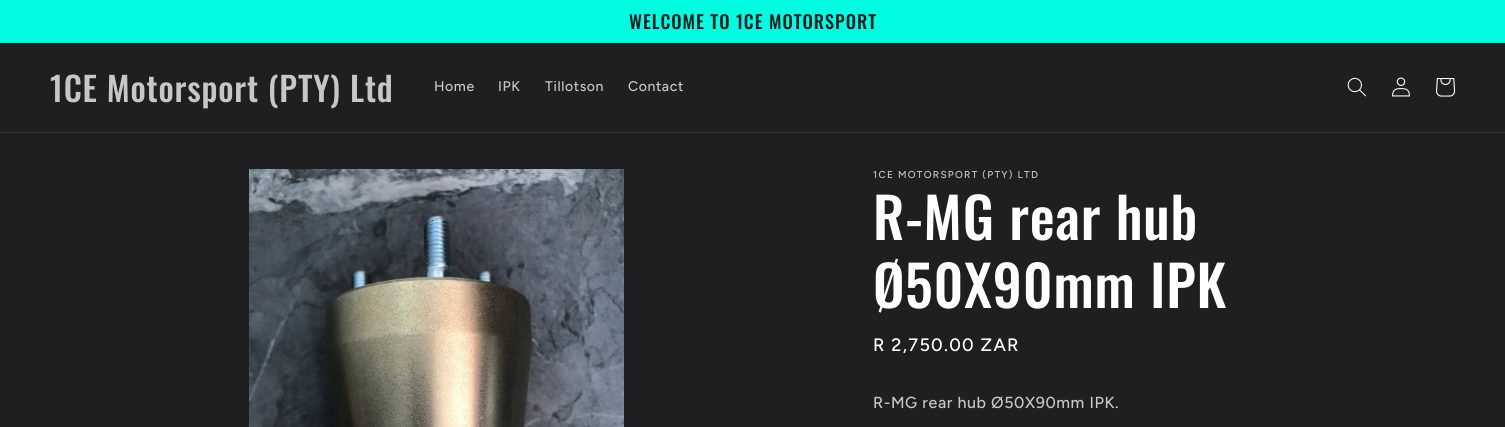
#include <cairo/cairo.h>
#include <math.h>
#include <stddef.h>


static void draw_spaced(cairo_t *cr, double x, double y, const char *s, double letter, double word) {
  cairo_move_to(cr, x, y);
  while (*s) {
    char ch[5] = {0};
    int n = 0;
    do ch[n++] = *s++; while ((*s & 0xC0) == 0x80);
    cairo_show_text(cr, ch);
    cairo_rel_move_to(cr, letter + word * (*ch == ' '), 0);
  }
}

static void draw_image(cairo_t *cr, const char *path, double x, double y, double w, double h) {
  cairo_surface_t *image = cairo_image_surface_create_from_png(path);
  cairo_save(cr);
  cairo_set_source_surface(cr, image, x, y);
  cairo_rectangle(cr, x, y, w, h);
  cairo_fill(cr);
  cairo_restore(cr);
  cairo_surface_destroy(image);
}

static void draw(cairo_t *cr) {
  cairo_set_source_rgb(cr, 31 / 255.0, 31 / 255.0, 33 / 255.0);
  cairo_paint(cr);
  cairo_set_source_rgb(cr, 2 / 255.0, 252 / 255.0, 226 / 255.0);
  cairo_rectangle(cr, 0, 0, 1505, 42);
  cairo_fill(cr);
  cairo_set_source_rgb(cr, 4 / 255.0, 234 / 255.0, 211 / 255.0);
  cairo_rectangle(cr, 0, 42, 1505, 1);
  cairo_fill(cr);
  cairo_set_source_rgb(cr, 49 / 255.0, 49 / 255.0, 51 / 255.0);
  cairo_rectangle(cr, 0, 132, 1505, 1);
  cairo_fill(cr);
  draw_image(cr, "images/1.png", 1347, 77, 19, 20);
  draw_image(cr, "images/2.png", 1392, 77, 18, 20);
  draw_image(cr, "images/3.png", 1436, 78, 20, 19);
  draw_image(cr, "images/4.png", 249, 169, 375, 258);
  cairo_select_font_face(cr, "Oswald Medium", CAIRO_FONT_SLANT_NORMAL, CAIRO_FONT_WEIGHT_NORMAL);
  cairo_set_font_size(cr, 18.25);
  cairo_set_source_rgb(cr, 31 / 255.0, 31 / 255.0, 33 / 255.0);
  draw_spaced(cr, 629, 29, "WELCOME TO 1CE MOTORSPORT", 1, 0);
  cairo_set_font_size(cr, 33.6);
  cairo_set_source_rgb(cr, 199 / 255.0, 199 / 255.0, 200 / 255.0);
  draw_spaced(cr, 50, 102, "1CE Motorsport (PTY) Ltd", 0.8, 0);
  cairo_select_font_face(cr, "Figtree Medium", CAIRO_FONT_SLANT_NORMAL, CAIRO_FONT_WEIGHT_NORMAL);
  cairo_set_font_size(cr, 14);
  draw_spaced(cr, 434, 91, "Home", 0.6, 0);
  draw_spaced(cr, 498, 91, "IPK", 0.6, 0);
  draw_spaced(cr, 545, 91, "Tillotson", 0.6, 0);
  draw_spaced(cr, 628, 91, "Contact", 0.6, 0);
  cairo_set_font_size(cr, 10);
  draw_spaced(cr, 873, 178, "1CE MOTORSPORT (PTY) LTD", 1.3, 0);
  cairo_select_font_face(cr, "Oswald Medium", CAIRO_FONT_SLANT_NORMAL, CAIRO_FONT_WEIGHT_NORMAL);
  cairo_set_font_size(cr, 56);
  cairo_set_source_rgb(cr, 1, 1, 1);
  draw_spaced(cr, 873, 240, "R-MG rear hub", 0.8, 0);
  draw_spaced(cr, 873, 308, "Ø50X90mm IPK", 0.8, 0);
  cairo_select_font_face(cr, "Figtree Medium", CAIRO_FONT_SLANT_NORMAL, CAIRO_FONT_WEIGHT_NORMAL);
  cairo_set_font_size(cr, 18);
  draw_spaced(cr, 873, 351, "R 2,750.00 ZAR", 1.3, 0);
  cairo_set_font_size(cr, 16);
  cairo_set_source_rgb(cr, 199 / 255.0, 199 / 255.0, 200 / 255.0);
  draw_spaced(cr, 873, 408, "R-MG rear hub Ø50X90mm IPK.", 0.6, 0);
}

int main(void) {
  cairo_surface_t *surface = cairo_image_surface_create(CAIRO_FORMAT_RGB24, 1505, 427);
  cairo_t *cr = cairo_create(surface);
  cairo_font_options_t *options = cairo_font_options_create();
  cairo_font_options_set_hint_metrics(options, CAIRO_HINT_METRICS_OFF);
  cairo_font_options_set_hint_style(options, CAIRO_HINT_STYLE_NONE);
  cairo_set_font_options(cr, options);
  cairo_set_miter_limit(cr, 4);
  draw(cr);
  cairo_surface_write_to_png(surface, "out.png");
  cairo_font_options_destroy(options);
  cairo_destroy(cr);
  cairo_surface_destroy(surface);
  return 0;
}
